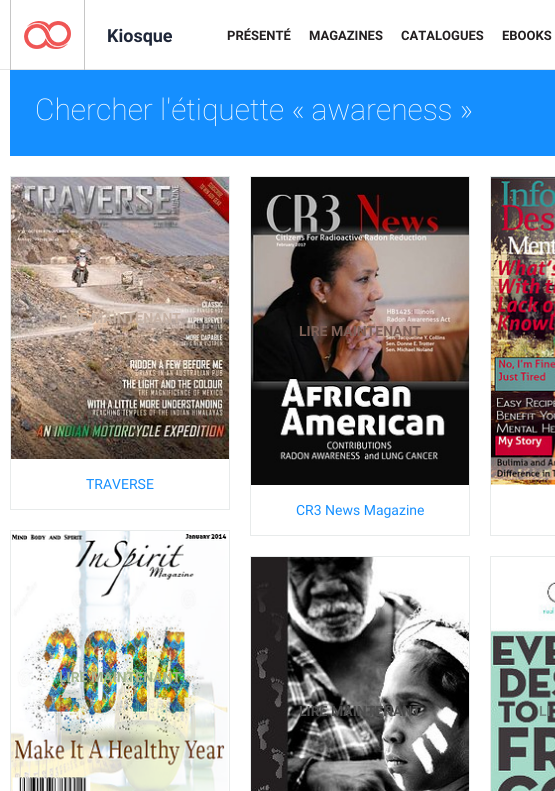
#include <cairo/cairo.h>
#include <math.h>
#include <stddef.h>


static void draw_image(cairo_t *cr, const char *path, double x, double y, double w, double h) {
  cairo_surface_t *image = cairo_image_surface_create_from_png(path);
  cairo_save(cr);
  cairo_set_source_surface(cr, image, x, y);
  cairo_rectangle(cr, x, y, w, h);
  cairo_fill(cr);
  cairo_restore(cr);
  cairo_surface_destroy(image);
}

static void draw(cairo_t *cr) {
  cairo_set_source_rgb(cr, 1, 1, 1);
  cairo_paint(cr);
  cairo_set_source_rgb(cr, 229 / 255.0, 229 / 255.0, 229 / 255.0);
  cairo_rectangle(cr, 0, 69, 555, 1);
  cairo_fill(cr);
  cairo_set_source_rgb(cr, 198 / 255.0, 198 / 255.0, 198 / 255.0);
  cairo_rectangle(cr, 84, 0, 1, 70);
  cairo_fill(cr);
  cairo_rectangle(cr, 10, 0, 1, 70);
  cairo_fill(cr);
  draw_image(cr, "images/1.png", 24, 21, 47, 28);
  cairo_set_source_rgb(cr, 21 / 255.0, 143 / 255.0, 1);
  cairo_rectangle(cr, 10, 70, 545, 86);
  cairo_fill(cr);
  cairo_rectangle(cr, 10.5, 176.5, 219, 333);
  cairo_set_source_rgb(cr, 232 / 255.0, 235 / 255.0, 235 / 255.0);
  cairo_set_line_width(cr, 1);
  cairo_stroke(cr);
  draw_image(cr, "images/2.png", 11, 177, 218, 282);
  cairo_rectangle(cr, 250.5, 176.5, 219, 359);
  cairo_stroke(cr);
  draw_image(cr, "images/3.png", 251, 177, 218, 308);
  cairo_rectangle(cr, 490.5, 176.5, 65, 359);
  cairo_stroke(cr);
  draw_image(cr, "images/4.png", 491, 177, 64, 308);
  cairo_rectangle(cr, 10.5, 530.5, 219, 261);
  cairo_stroke(cr);
  draw_image(cr, "images/5.png", 11, 531, 217, 260);
  cairo_rectangle(cr, 250.5, 556.5, 219, 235);
  cairo_stroke(cr);
  draw_image(cr, "images/6.png", 251, 557, 218, 234);
  cairo_rectangle(cr, 490.5, 556.5, 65, 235);
  cairo_stroke(cr);
  draw_image(cr, "images/7.png", 491, 582, 64, 209);
  cairo_select_font_face(cr, "Roboto", CAIRO_FONT_SLANT_NORMAL, CAIRO_FONT_WEIGHT_BOLD);
  cairo_set_font_size(cr, 18);
  cairo_set_source_rgb(cr, 30 / 255.0, 38 / 255.0, 56 / 255.0);
  cairo_move_to(cr, 107, 42);
  cairo_show_text(cr, "Kiosque");
  cairo_set_font_size(cr, 13);
  cairo_set_source_rgb(cr, 35 / 255.0, 31 / 255.0, 32 / 255.0);
  cairo_move_to(cr, 227, 40);
  cairo_show_text(cr, "PRÉSENTÉ");
  cairo_move_to(cr, 309, 40);
  cairo_show_text(cr, "MAGAZINES");
  cairo_move_to(cr, 401, 40);
  cairo_show_text(cr, "CATALOGUES");
  cairo_move_to(cr, 502, 40);
  cairo_show_text(cr, "EBOOKS");
  cairo_select_font_face(cr, "Roboto Thin", CAIRO_FONT_SLANT_NORMAL, CAIRO_FONT_WEIGHT_NORMAL);
  cairo_set_font_size(cr, 30);
  cairo_set_source_rgb(cr, 1, 1, 1);
  cairo_move_to(cr, 35, 120);
  cairo_show_text(cr, "Chercher l'étiquette « awareness »");
  cairo_select_font_face(cr, "Roboto", CAIRO_FONT_SLANT_NORMAL, CAIRO_FONT_WEIGHT_BOLD);
  cairo_set_font_size(cr, 14);
  cairo_set_source_rgb(cr, 196 / 255.0, 176 / 255.0, 163 / 255.0);
  cairo_move_to(cr, 59, 323);
  cairo_show_text(cr, "LIRE MAINTENANT");
  cairo_select_font_face(cr, "Roboto", CAIRO_FONT_SLANT_NORMAL, CAIRO_FONT_WEIGHT_NORMAL);
  cairo_set_source_rgb(cr, 21 / 255.0, 143 / 255.0, 1);
  cairo_move_to(cr, 86, 489);
  cairo_show_text(cr, "TRAVERSE");
  cairo_select_font_face(cr, "Roboto", CAIRO_FONT_SLANT_NORMAL, CAIRO_FONT_WEIGHT_BOLD);
  cairo_set_source_rgb(cr, 126 / 255.0, 96 / 255.0, 87 / 255.0);
  cairo_move_to(cr, 299, 336);
  cairo_show_text(cr, "LIRE MAINTENANT");
  cairo_select_font_face(cr, "Roboto", CAIRO_FONT_SLANT_NORMAL, CAIRO_FONT_WEIGHT_NORMAL);
  cairo_set_source_rgb(cr, 21 / 255.0, 143 / 255.0, 1);
  cairo_move_to(cr, 296, 515);
  cairo_show_text(cr, "CR3 News Magazine");
  cairo_select_font_face(cr, "Roboto", CAIRO_FONT_SLANT_NORMAL, CAIRO_FONT_WEIGHT_BOLD);
  cairo_set_source_rgb(cr, 165 / 255.0, 182 / 255.0, 143 / 255.0);
  cairo_move_to(cr, 59, 682);
  cairo_show_text(cr, "LIRE MAINTENANT");
  cairo_set_source_rgb(cr, 78 / 255.0, 78 / 255.0, 78 / 255.0);
  cairo_move_to(cr, 299, 716);
  cairo_show_text(cr, "LIRE MAINTENANT");
  cairo_set_source_rgb(cr, 115 / 255.0, 139 / 255.0, 132 / 255.0);
  cairo_move_to(cr, 539, 716);
  cairo_show_text(cr, "LI");
}

int main(void) {
  cairo_surface_t *surface = cairo_image_surface_create(CAIRO_FORMAT_RGB24, 555, 791);
  cairo_t *cr = cairo_create(surface);
  cairo_font_options_t *options = cairo_font_options_create();
  cairo_font_options_set_hint_metrics(options, CAIRO_HINT_METRICS_OFF);
  cairo_font_options_set_hint_style(options, CAIRO_HINT_STYLE_NONE);
  cairo_set_font_options(cr, options);
  cairo_set_miter_limit(cr, 4);
  draw(cr);
  cairo_surface_write_to_png(surface, "out.png");
  cairo_font_options_destroy(options);
  cairo_destroy(cr);
  cairo_surface_destroy(surface);
  return 0;
}
